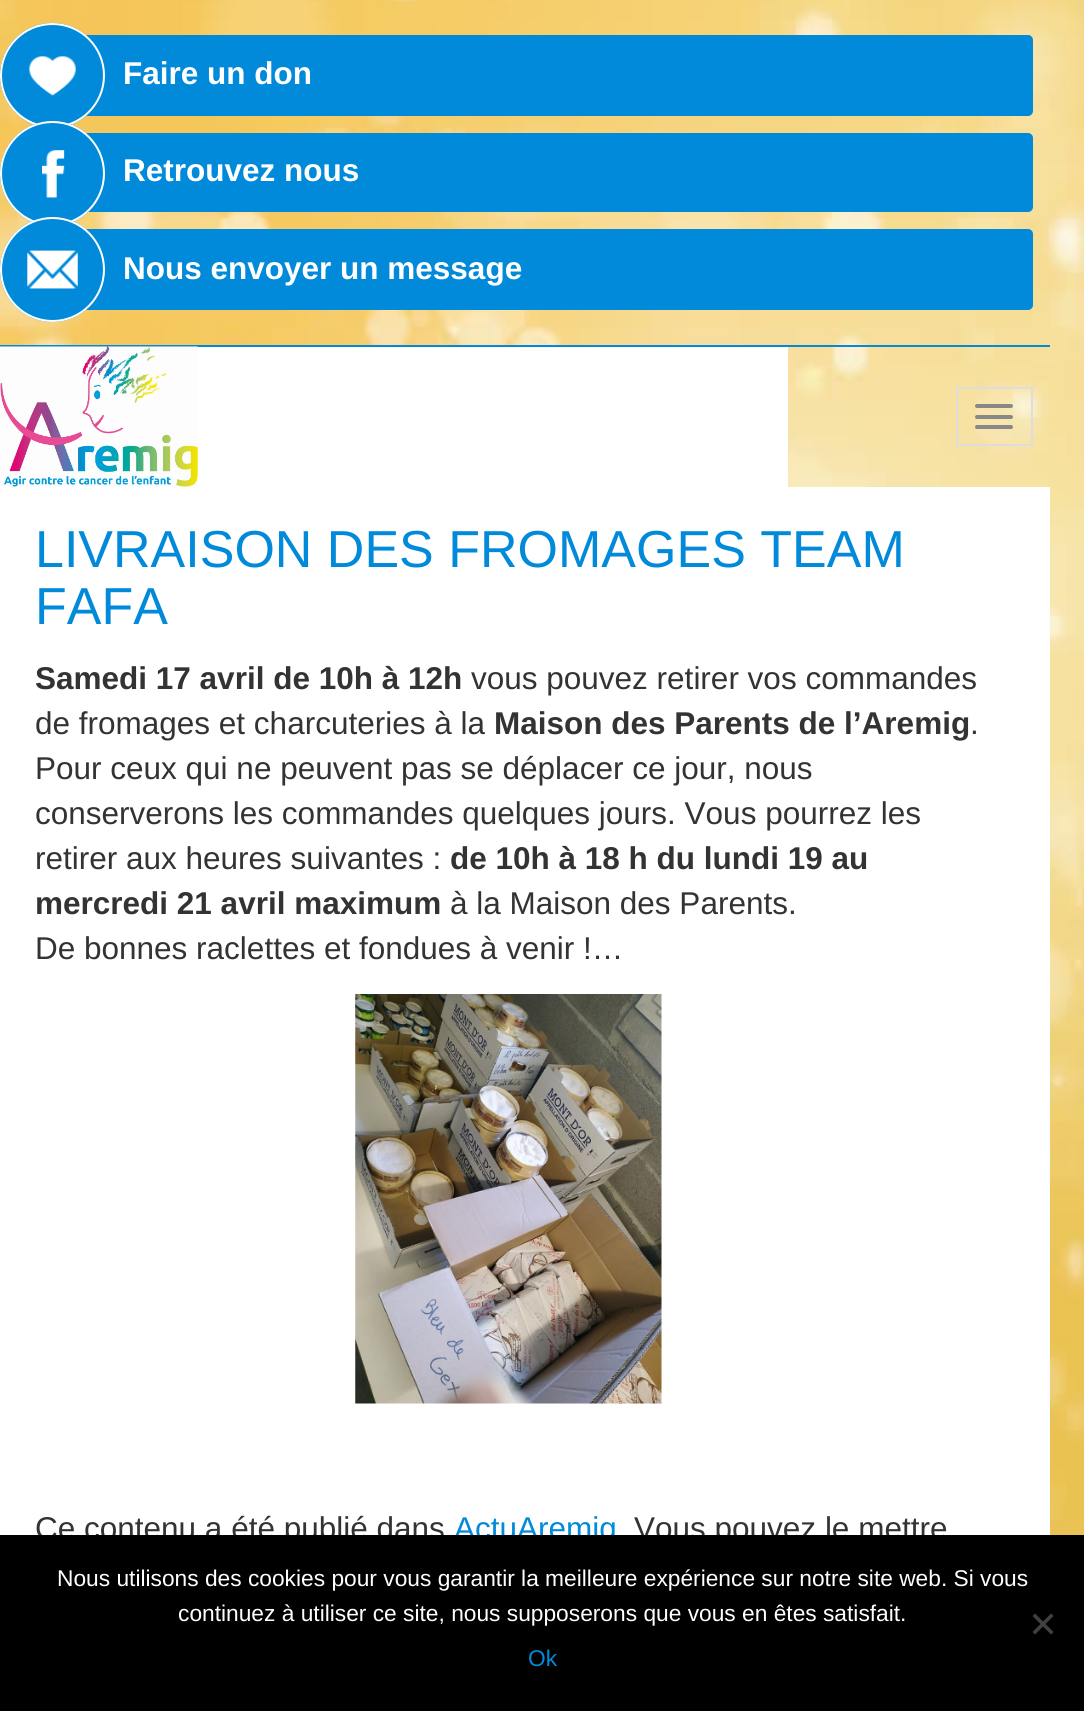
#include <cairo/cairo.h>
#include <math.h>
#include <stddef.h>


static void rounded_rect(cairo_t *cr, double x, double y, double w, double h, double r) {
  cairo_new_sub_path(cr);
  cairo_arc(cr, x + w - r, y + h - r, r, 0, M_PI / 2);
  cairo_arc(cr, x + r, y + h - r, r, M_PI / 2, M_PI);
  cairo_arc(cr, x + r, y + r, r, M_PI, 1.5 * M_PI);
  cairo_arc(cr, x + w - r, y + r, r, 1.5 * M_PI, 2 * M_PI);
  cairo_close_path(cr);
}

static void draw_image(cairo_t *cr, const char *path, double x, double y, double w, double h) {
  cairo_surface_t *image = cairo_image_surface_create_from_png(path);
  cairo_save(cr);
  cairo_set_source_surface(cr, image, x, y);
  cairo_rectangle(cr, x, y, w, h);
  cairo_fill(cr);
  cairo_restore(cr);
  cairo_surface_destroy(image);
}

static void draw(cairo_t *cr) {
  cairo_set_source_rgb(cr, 1, 1, 1);
  cairo_paint(cr);
  draw_image(cr, "images/1.png", 0, 0, 1084, 1535);
  cairo_set_source_rgb(cr, 1 / 255.0, 138 / 255.0, 218 / 255.0);
  cairo_rectangle(cr, 0, 345, 1050, 2);
  cairo_fill(cr);
  rounded_rect(cr, 18, 35, 1015, 81, 5);
  cairo_fill(cr);
  cairo_arc(cr, 52.5, 75.5, 52.5, 0, 2 * M_PI);
  cairo_fill(cr);
  draw_image(cr, "images/2.png", 29, 56, 47, 40);
  cairo_arc(cr, 52.5, 75.5, 51.5, 0, 2 * M_PI);
  cairo_set_source_rgb(cr, 1, 1, 1);
  cairo_stroke(cr);
  cairo_set_source_rgb(cr, 1 / 255.0, 138 / 255.0, 218 / 255.0);
  rounded_rect(cr, 18, 133, 1015, 79, 5);
  cairo_fill(cr);
  cairo_arc(cr, 52.5, 173.5, 52.5, 0, 2 * M_PI);
  cairo_fill(cr);
  draw_image(cr, "images/3.png", 42, 150, 23, 48);
  cairo_arc(cr, 52.5, 173.5, 51.5, 0, 2 * M_PI);
  cairo_set_source_rgb(cr, 1, 1, 1);
  cairo_stroke(cr);
  cairo_set_source_rgb(cr, 1 / 255.0, 138 / 255.0, 218 / 255.0);
  rounded_rect(cr, 18, 229, 1015, 81, 5);
  cairo_fill(cr);
  cairo_arc(cr, 52.5, 269.5, 52.5, 0, 2 * M_PI);
  cairo_fill(cr);
  draw_image(cr, "images/4.png", 27, 250, 51, 39);
  cairo_arc(cr, 52.5, 269.5, 51.5, 0, 2 * M_PI);
  cairo_set_source_rgb(cr, 1, 1, 1);
  cairo_stroke(cr);
  cairo_rectangle(cr, 0, 347, 788, 140);
  cairo_fill(cr);
  draw_image(cr, "images/5.png", 0, 346, 198, 141);
  cairo_rectangle(cr, 957, 388, 75, 57);
  cairo_set_source_rgb(cr, 221 / 255.0, 221 / 255.0, 221 / 255.0);
  cairo_stroke(cr);
  cairo_set_source_rgb(cr, 136 / 255.0, 136 / 255.0, 136 / 255.0);
  rounded_rect(cr, 975, 404, 38, 4, 2);
  cairo_fill(cr);
  rounded_rect(cr, 975, 415, 38, 4, 2);
  cairo_fill(cr);
  rounded_rect(cr, 975, 425, 38, 4, 2);
  cairo_fill(cr);
  cairo_set_source_rgb(cr, 1, 1, 1);
  cairo_rectangle(cr, 0, 487, 1050, 1048);
  cairo_fill(cr);
  draw_image(cr, "images/6.png", 355, 994, 307, 410);
  cairo_select_font_face(cr, "Liberation Sans", CAIRO_FONT_SLANT_NORMAL, CAIRO_FONT_WEIGHT_BOLD);
  cairo_set_font_size(cr, 31.5);
  cairo_move_to(cr, 123, 84);
  cairo_show_text(cr, "Faire un don");
  cairo_move_to(cr, 123, 181);
  cairo_show_text(cr, "Retrouvez nous");
  cairo_move_to(cr, 123, 279);
  cairo_show_text(cr, "Nous envoyer un message");
  cairo_select_font_face(cr, "Liberation Sans", CAIRO_FONT_SLANT_NORMAL, CAIRO_FONT_WEIGHT_NORMAL);
  cairo_set_font_size(cr, 52);
  cairo_set_source_rgb(cr, 1 / 255.0, 138 / 255.0, 218 / 255.0);
  cairo_move_to(cr, 35, 567);
  cairo_show_text(cr, "LIVRAISON DES FROMAGES TEAM");
  cairo_move_to(cr, 35, 624);
  cairo_show_text(cr, "FAFA");
  cairo_select_font_face(cr, "Liberation Sans", CAIRO_FONT_SLANT_NORMAL, CAIRO_FONT_WEIGHT_BOLD);
  cairo_set_font_size(cr, 31.5);
  cairo_set_source_rgb(cr, 51 / 255.0, 51 / 255.0, 51 / 255.0);
  cairo_move_to(cr, 35, 689);
  cairo_show_text(cr, "Samedi 17 avril de 10h à 12h");
  cairo_select_font_face(cr, "Liberation Sans", CAIRO_FONT_SLANT_NORMAL, CAIRO_FONT_WEIGHT_NORMAL);
  cairo_move_to(cr, 471, 689);
  cairo_show_text(cr, "vous pouvez retirer vos commandes");
  cairo_move_to(cr, 35, 734);
  cairo_show_text(cr, "de fromages et charcuteries à la");
  cairo_select_font_face(cr, "Liberation Sans", CAIRO_FONT_SLANT_NORMAL, CAIRO_FONT_WEIGHT_BOLD);
  cairo_move_to(cr, 494, 734);
  cairo_show_text(cr, "Maison des Parents de l’Aremig");
  cairo_select_font_face(cr, "Liberation Sans", CAIRO_FONT_SLANT_NORMAL, CAIRO_FONT_WEIGHT_NORMAL);
  cairo_move_to(cr, 970, 734);
  cairo_show_text(cr, ".");
  cairo_move_to(cr, 35, 779);
  cairo_show_text(cr, "Pour ceux qui ne peuvent pas se déplacer ce jour, nous");
  cairo_move_to(cr, 35, 824);
  cairo_show_text(cr, "conserverons les commandes quelques jours. Vous pourrez les");
  cairo_move_to(cr, 35, 869);
  cairo_show_text(cr, "retirer aux heures suivantes :");
  cairo_select_font_face(cr, "Liberation Sans", CAIRO_FONT_SLANT_NORMAL, CAIRO_FONT_WEIGHT_BOLD);
  cairo_move_to(cr, 450, 869);
  cairo_show_text(cr, "de 10h à 18 h du lundi 19 au");
  cairo_move_to(cr, 35, 914);
  cairo_show_text(cr, "mercredi 21 avril maximum");
  cairo_select_font_face(cr, "Liberation Sans", CAIRO_FONT_SLANT_NORMAL, CAIRO_FONT_WEIGHT_NORMAL);
  cairo_move_to(cr, 450, 914);
  cairo_show_text(cr, "à la Maison des Parents.");
  cairo_move_to(cr, 35, 959);
  cairo_show_text(cr, "De bonnes raclettes et fondues à venir !…");
  cairo_move_to(cr, 35, 1539);
  cairo_show_text(cr, "Ce contenu a été publié dans");
  cairo_set_source_rgb(cr, 1 / 255.0, 138 / 255.0, 218 / 255.0);
  cairo_move_to(cr, 454, 1539);
  cairo_show_text(cr, "ActuAremig");
  cairo_set_source_rgb(cr, 51 / 255.0, 51 / 255.0, 51 / 255.0);
  cairo_move_to(cr, 634, 1539);
  cairo_show_text(cr, "Vous pouvez le mettre");
  cairo_set_source_rgb(cr, 0, 0, 0);
  cairo_rectangle(cr, 0, 1535, 1084, 176);
  cairo_fill(cr);
  cairo_set_font_size(cr, 22.75);
  cairo_set_source_rgb(cr, 1, 1, 1);
  cairo_move_to(cr, 57, 1586);
  cairo_show_text(cr, "Nous utilisons des cookies pour vous garantir la meilleure expérience sur notre site web. Si vous");
  cairo_move_to(cr, 178, 1621);
  cairo_show_text(cr, "continuez à utiliser ce site, nous supposerons que vous en êtes satisfait.");
  cairo_set_source_rgb(cr, 64 / 255.0, 64 / 255.0, 64 / 255.0);
  cairo_new_path(cr);
  cairo_move_to(cr, 1051, 1613.5);
  cairo_line_to(cr, 1053.5, 1616);
  cairo_line_to(cr, 1035, 1634.5);
  cairo_line_to(cr, 1032.5, 1632);
  cairo_close_path(cr);
  cairo_fill(cr);
  cairo_new_path(cr);
  cairo_move_to(cr, 1032.5, 1616);
  cairo_line_to(cr, 1035, 1613.5);
  cairo_line_to(cr, 1053.5, 1632);
  cairo_line_to(cr, 1051, 1634.5);
  cairo_close_path(cr);
  cairo_fill(cr);
  cairo_set_source_rgb(cr, 1 / 255.0, 138 / 255.0, 218 / 255.0);
  cairo_move_to(cr, 528, 1666);
  cairo_show_text(cr, "Ok");
}

int main(void) {
  cairo_surface_t *surface = cairo_image_surface_create(CAIRO_FORMAT_RGB24, 1084, 1711);
  cairo_t *cr = cairo_create(surface);
  cairo_font_options_t *options = cairo_font_options_create();
  cairo_font_options_set_hint_metrics(options, CAIRO_HINT_METRICS_OFF);
  cairo_font_options_set_hint_style(options, CAIRO_HINT_STYLE_NONE);
  cairo_set_font_options(cr, options);
  cairo_set_miter_limit(cr, 4);
  draw(cr);
  cairo_surface_write_to_png(surface, "out.png");
  cairo_font_options_destroy(options);
  cairo_destroy(cr);
  cairo_surface_destroy(surface);
  return 0;
}
